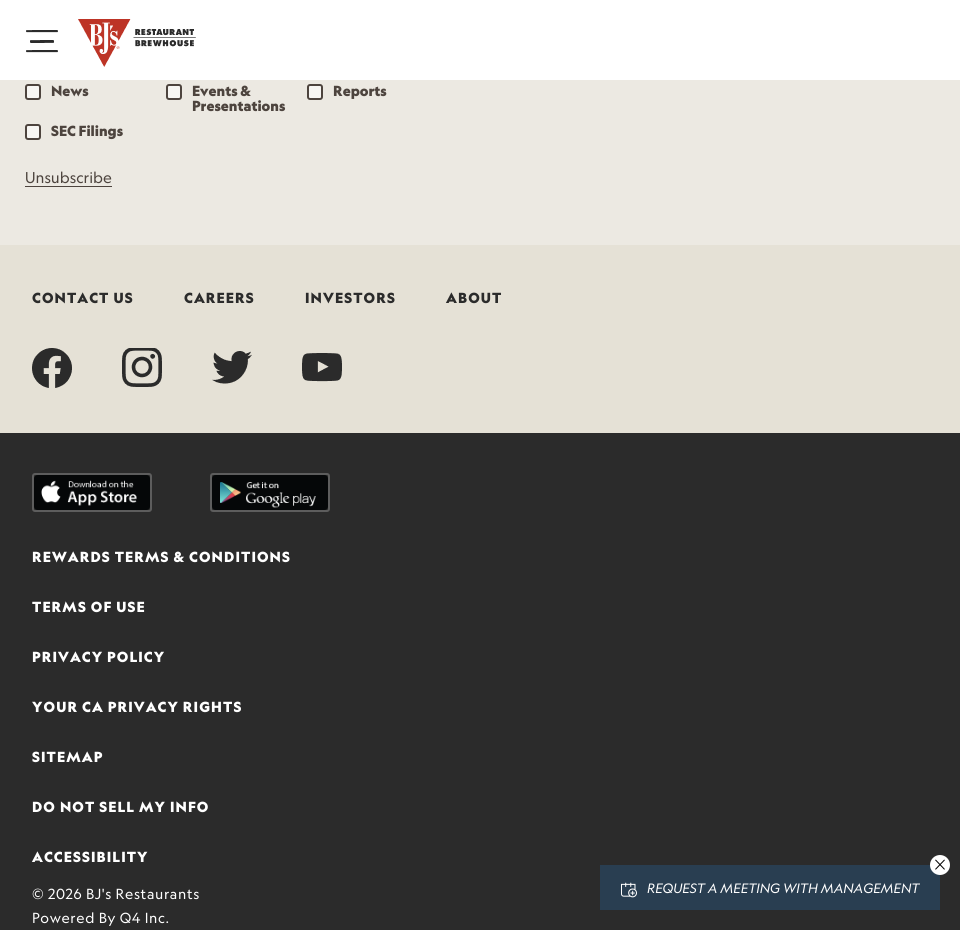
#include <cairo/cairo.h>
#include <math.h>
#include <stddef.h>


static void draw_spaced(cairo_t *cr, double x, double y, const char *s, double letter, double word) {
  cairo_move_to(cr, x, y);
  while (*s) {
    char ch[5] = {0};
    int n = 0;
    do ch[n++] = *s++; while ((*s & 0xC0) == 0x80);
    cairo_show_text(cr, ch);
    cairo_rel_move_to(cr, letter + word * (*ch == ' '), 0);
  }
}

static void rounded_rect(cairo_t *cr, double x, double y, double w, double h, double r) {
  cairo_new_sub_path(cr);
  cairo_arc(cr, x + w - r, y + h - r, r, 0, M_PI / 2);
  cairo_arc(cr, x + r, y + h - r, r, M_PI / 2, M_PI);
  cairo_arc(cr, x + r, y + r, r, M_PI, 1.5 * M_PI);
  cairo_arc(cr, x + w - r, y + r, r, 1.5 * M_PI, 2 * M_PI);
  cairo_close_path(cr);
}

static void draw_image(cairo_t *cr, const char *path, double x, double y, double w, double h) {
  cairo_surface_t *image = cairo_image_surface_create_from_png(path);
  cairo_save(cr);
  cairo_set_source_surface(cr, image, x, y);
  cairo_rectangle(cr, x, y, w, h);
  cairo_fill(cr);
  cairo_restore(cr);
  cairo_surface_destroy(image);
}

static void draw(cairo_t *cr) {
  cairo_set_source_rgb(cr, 236 / 255.0, 233 / 255.0, 226 / 255.0);
  cairo_paint(cr);
  cairo_set_source_rgb(cr, 1, 1, 1);
  cairo_rectangle(cr, 0, 0, 960, 80);
  cairo_fill(cr);
  draw_image(cr, "images/1.png", 26, 30, 32, 23);
  draw_image(cr, "images/2.png", 78, 19, 118, 48);
  cairo_set_source_rgb(cr, 247 / 255.0, 246 / 255.0, 243 / 255.0);
  rounded_rect(cr, 26, 85, 14, 14, 2);
  cairo_fill_preserve(cr);
  cairo_set_source_rgb(cr, 77 / 255.0, 68 / 255.0, 62 / 255.0);
  cairo_stroke(cr);
  cairo_set_source_rgb(cr, 247 / 255.0, 246 / 255.0, 243 / 255.0);
  rounded_rect(cr, 167, 85, 14, 14, 2);
  cairo_fill_preserve(cr);
  cairo_set_source_rgb(cr, 77 / 255.0, 68 / 255.0, 62 / 255.0);
  cairo_stroke(cr);
  cairo_set_source_rgb(cr, 247 / 255.0, 246 / 255.0, 243 / 255.0);
  rounded_rect(cr, 308, 85, 14, 14, 2);
  cairo_fill_preserve(cr);
  cairo_set_source_rgb(cr, 77 / 255.0, 68 / 255.0, 62 / 255.0);
  cairo_stroke(cr);
  cairo_set_source_rgb(cr, 247 / 255.0, 246 / 255.0, 243 / 255.0);
  rounded_rect(cr, 26, 125, 14, 14, 2);
  cairo_fill_preserve(cr);
  cairo_set_source_rgb(cr, 77 / 255.0, 68 / 255.0, 62 / 255.0);
  cairo_stroke(cr);
  cairo_rectangle(cr, 25, 186, 87, 1);
  cairo_fill(cr);
  cairo_set_source_rgb(cr, 43 / 255.0, 43 / 255.0, 43 / 255.0);
  cairo_rectangle(cr, 0, 433, 960, 497);
  cairo_fill(cr);
  cairo_set_source_rgb(cr, 41 / 255.0, 62 / 255.0, 81 / 255.0);
  cairo_rectangle(cr, 600, 865, 340, 45);
  cairo_fill(cr);
  cairo_set_source_rgb(cr, 1, 1, 1);
  cairo_arc(cr, 940, 865, 10, 0, 2 * M_PI);
  cairo_fill(cr);
  draw_image(cr, "images/3.png", 935, 859, 10, 11);
  draw_image(cr, "images/4.png", 621, 882, 16, 16);
  cairo_set_source_rgb(cr, 229 / 255.0, 225 / 255.0, 214 / 255.0);
  cairo_rectangle(cr, 0, 245, 960, 188);
  cairo_fill(cr);
  draw_image(cr, "images/5.png", 32, 348, 40, 40);
  draw_image(cr, "images/6.png", 122, 348, 40, 39);
  draw_image(cr, "images/7.png", 212, 351, 40, 33);
  draw_image(cr, "images/8.png", 302, 353, 40, 29);
  rounded_rect(cr, 33, 474, 118, 37, 2);
  cairo_set_source_rgb(cr, 93 / 255.0, 93 / 255.0, 93 / 255.0);
  cairo_stroke(cr);
  draw_image(cr, "images/9.png", 34, 475, 116, 35);
  rounded_rect(cr, 211, 474, 118, 37, 2);
  cairo_stroke(cr);
  draw_image(cr, "images/10.png", 212, 475, 116, 35);
  cairo_select_font_face(cr, "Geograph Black", CAIRO_FONT_SLANT_NORMAL, CAIRO_FONT_WEIGHT_NORMAL);
  cairo_set_font_size(cr, 14);
  cairo_set_source_rgb(cr, 77 / 255.0, 68 / 255.0, 62 / 255.0);
  cairo_move_to(cr, 51, 96);
  cairo_show_text(cr, "News");
  cairo_move_to(cr, 192, 96);
  cairo_show_text(cr, "Events &");
  cairo_move_to(cr, 192, 111);
  cairo_show_text(cr, "Presentations");
  cairo_move_to(cr, 333, 96);
  cairo_show_text(cr, "Reports");
  cairo_move_to(cr, 51, 136);
  cairo_show_text(cr, "SEC Filings");
  cairo_select_font_face(cr, "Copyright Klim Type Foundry", CAIRO_FONT_SLANT_NORMAL, CAIRO_FONT_WEIGHT_NORMAL);
  cairo_set_font_size(cr, 15);
  cairo_move_to(cr, 25, 183);
  cairo_show_text(cr, "Unsubscribe");
  cairo_select_font_face(cr, "Copyright Klim Type Foundry", CAIRO_FONT_SLANT_ITALIC, CAIRO_FONT_WEIGHT_NORMAL);
  cairo_set_font_size(cr, 13);
  cairo_set_source_rgb(cr, 1, 1, 1);
  cairo_move_to(cr, 647, 893);
  cairo_show_text(cr, "REQUEST A MEETING WITH MANAGEMENT");
  cairo_select_font_face(cr, "Geograph Black", CAIRO_FONT_SLANT_NORMAL, CAIRO_FONT_WEIGHT_NORMAL);
  cairo_set_font_size(cr, 14);
  cairo_set_source_rgb(cr, 43 / 255.0, 43 / 255.0, 43 / 255.0);
  draw_spaced(cr, 32, 303, "CONTACT US", 1.1, 0);
  draw_spaced(cr, 184, 303, "CAREERS", 1.1, 0);
  draw_spaced(cr, 305, 303, "INVESTORS", 1.1, 0);
  draw_spaced(cr, 446, 303, "ABOUT", 1.1, 0);
  cairo_set_source_rgb(cr, 1, 1, 1);
  draw_spaced(cr, 32, 562, "REWARDS TERMS & CONDITIONS", 1.1, 0);
  draw_spaced(cr, 32, 612, "TERMS OF USE", 1.1, 0);
  draw_spaced(cr, 32, 662, "PRIVACY POLICY", 1.1, 0);
  draw_spaced(cr, 32, 712, "YOUR CA PRIVACY RIGHTS", 1.1, 0);
  draw_spaced(cr, 32, 762, "SITEMAP", 1.1, 0);
  draw_spaced(cr, 32, 812, "DO NOT SELL MY INFO", 1.1, 0);
  draw_spaced(cr, 32, 862, "ACCESSIBILITY", 1.1, 0);
  cairo_select_font_face(cr, "Copyright Klim Type Foundry", CAIRO_FONT_SLANT_NORMAL, CAIRO_FONT_WEIGHT_NORMAL);
  draw_spaced(cr, 32, 899, "© 2026 BJ's Restaurants", 0.6, 0);
  draw_spaced(cr, 32, 923, "Powered By Q4 Inc.", 0.6, 0);
}

int main(void) {
  cairo_surface_t *surface = cairo_image_surface_create(CAIRO_FORMAT_RGB24, 960, 930);
  cairo_t *cr = cairo_create(surface);
  cairo_font_options_t *options = cairo_font_options_create();
  cairo_font_options_set_hint_metrics(options, CAIRO_HINT_METRICS_OFF);
  cairo_font_options_set_hint_style(options, CAIRO_HINT_STYLE_NONE);
  cairo_set_font_options(cr, options);
  cairo_set_miter_limit(cr, 4);
  draw(cr);
  cairo_surface_write_to_png(surface, "out.png");
  cairo_font_options_destroy(options);
  cairo_destroy(cr);
  cairo_surface_destroy(surface);
  return 0;
}
